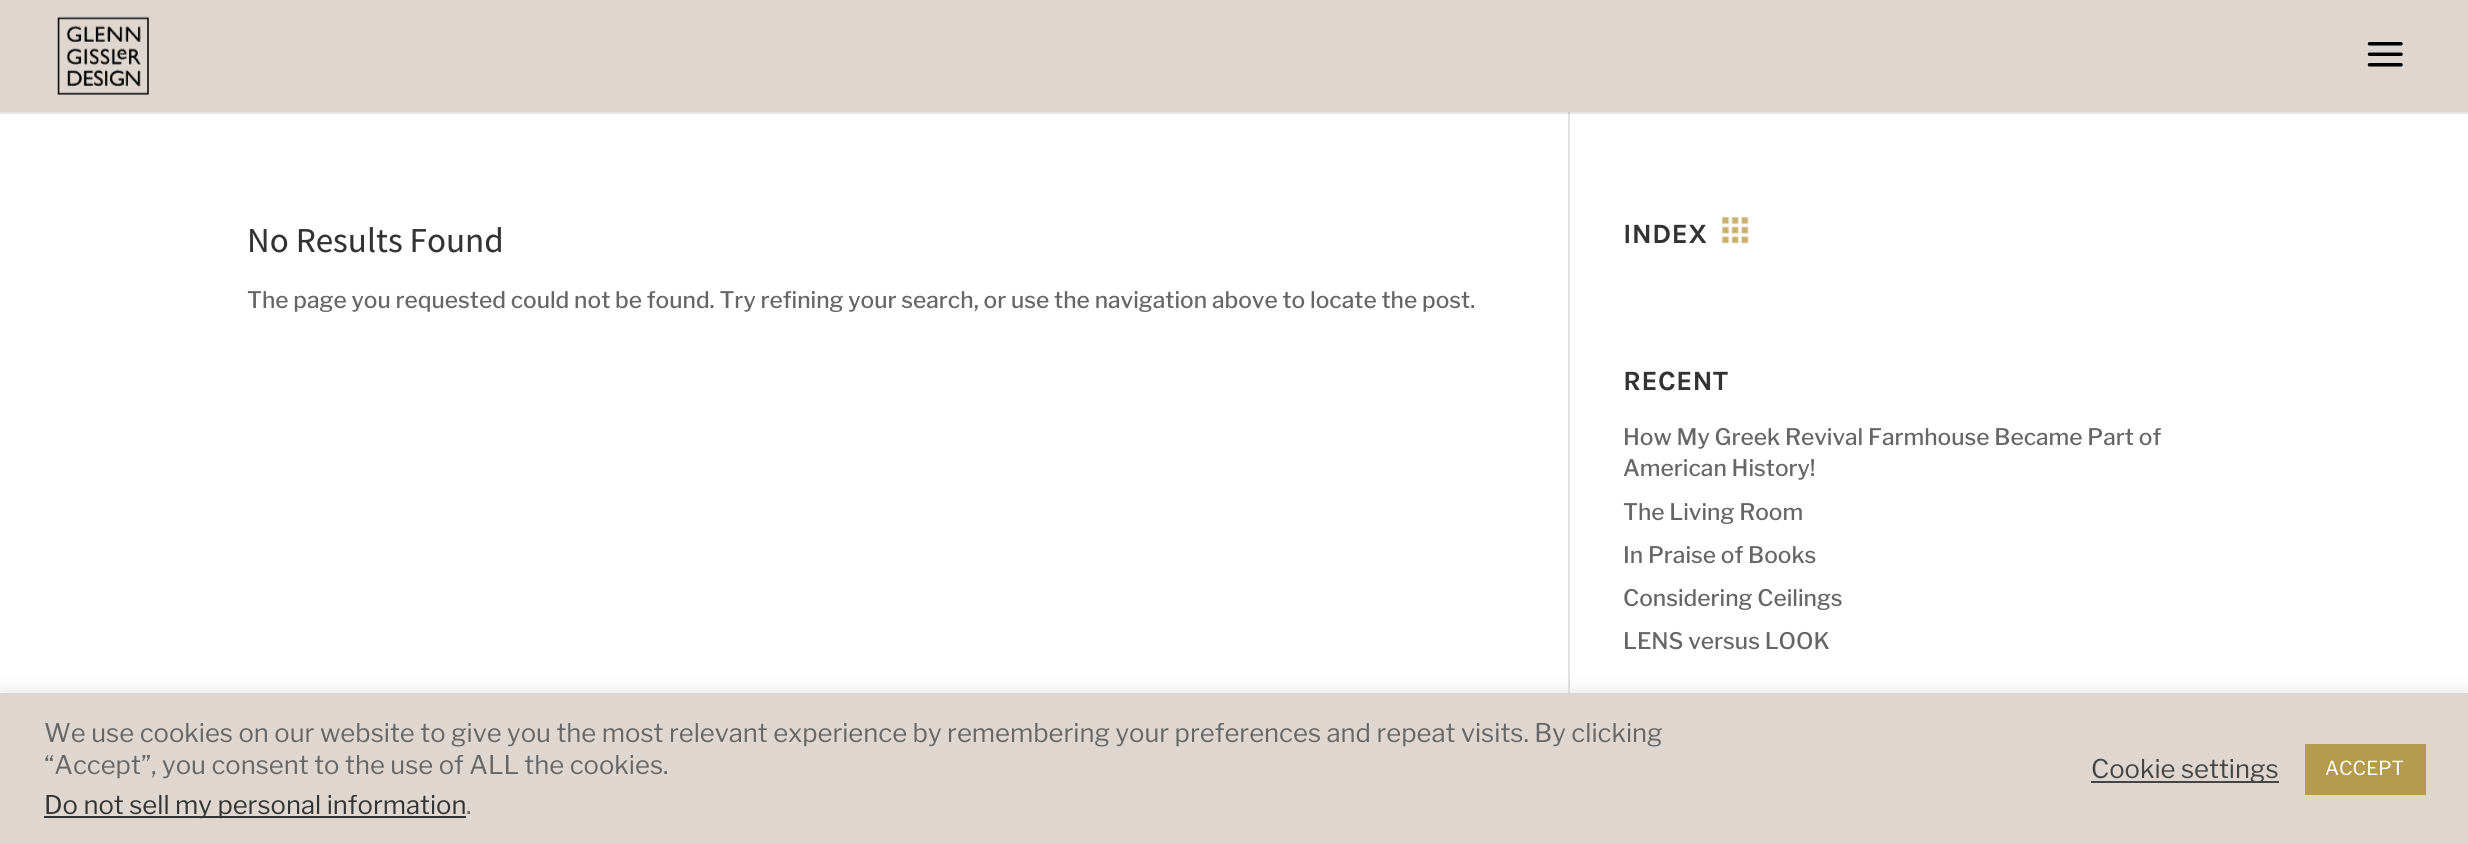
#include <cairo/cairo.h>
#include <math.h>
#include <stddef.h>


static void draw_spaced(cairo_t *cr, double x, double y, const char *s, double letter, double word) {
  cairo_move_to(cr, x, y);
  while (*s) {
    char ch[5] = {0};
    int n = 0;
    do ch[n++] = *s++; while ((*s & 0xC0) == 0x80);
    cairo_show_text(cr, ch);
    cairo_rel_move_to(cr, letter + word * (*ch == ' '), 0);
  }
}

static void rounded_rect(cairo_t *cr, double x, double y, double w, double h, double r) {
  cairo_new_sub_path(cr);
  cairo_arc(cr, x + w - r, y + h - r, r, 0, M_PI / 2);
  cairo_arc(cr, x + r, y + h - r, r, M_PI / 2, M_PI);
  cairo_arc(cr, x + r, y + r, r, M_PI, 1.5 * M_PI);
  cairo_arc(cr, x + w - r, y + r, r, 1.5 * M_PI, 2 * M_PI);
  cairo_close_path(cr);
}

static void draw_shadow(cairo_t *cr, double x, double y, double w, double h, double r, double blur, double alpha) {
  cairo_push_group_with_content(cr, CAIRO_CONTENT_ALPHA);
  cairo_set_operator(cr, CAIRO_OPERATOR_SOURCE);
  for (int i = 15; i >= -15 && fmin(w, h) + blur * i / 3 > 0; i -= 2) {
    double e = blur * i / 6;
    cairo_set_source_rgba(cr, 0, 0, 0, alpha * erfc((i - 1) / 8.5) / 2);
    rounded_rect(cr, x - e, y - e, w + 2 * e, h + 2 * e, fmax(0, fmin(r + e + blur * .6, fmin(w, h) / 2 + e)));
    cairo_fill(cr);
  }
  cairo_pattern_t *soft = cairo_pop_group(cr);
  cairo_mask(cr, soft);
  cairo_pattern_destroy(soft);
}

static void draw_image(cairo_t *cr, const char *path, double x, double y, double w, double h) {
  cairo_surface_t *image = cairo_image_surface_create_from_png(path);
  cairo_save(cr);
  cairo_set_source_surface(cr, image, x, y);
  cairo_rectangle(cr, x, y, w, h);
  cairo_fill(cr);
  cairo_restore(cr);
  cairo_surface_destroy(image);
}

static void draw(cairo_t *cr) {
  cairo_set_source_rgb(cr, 1, 1, 1);
  cairo_paint(cr);
  cairo_set_source_rgb(cr, 223 / 255.0, 215 / 255.0, 207 / 255.0);
  cairo_rectangle(cr, 0, 0, 2468, 112);
  cairo_fill(cr);
  draw_image(cr, "images/1.png", 57, 16, 92, 79);
  draw_image(cr, "images/2.png", 2367, 42, 36, 25);
  cairo_set_source_rgb(cr, 230 / 255.0, 230 / 255.0, 230 / 255.0);
  cairo_rectangle(cr, 0, 112, 2468, 2);
  cairo_fill(cr);
  cairo_set_source_rgb(cr, 226 / 255.0, 226 / 255.0, 226 / 255.0);
  cairo_rectangle(cr, 1568, 112, 2, 581);
  cairo_fill(cr);
  cairo_set_source_rgb(cr, 203 / 255.0, 203 / 255.0, 203 / 255.0);
  cairo_rectangle(cr, 1568, 112, 2, 2);
  cairo_fill(cr);
  draw_image(cr, "images/3.png", 1722, 217, 27, 27);
  cairo_set_source_rgb(cr, 172 / 255.0, 171 / 255.0, 171 / 255.0);
  draw_shadow(cr, 0, 691, 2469, 153, 0, 9, 0.3);
  cairo_set_source_rgb(cr, 223 / 255.0, 215 / 255.0, 207 / 255.0);
  cairo_rectangle(cr, 0, 693, 2468, 151);
  cairo_fill(cr);
  cairo_set_source_rgb(cr, 51 / 255.0, 51 / 255.0, 51 / 255.0);
  cairo_rectangle(cr, 44, 816, 422, 2);
  cairo_fill(cr);
  cairo_set_source_rgb(cr, 68 / 255.0, 68 / 255.0, 68 / 255.0);
  cairo_rectangle(cr, 2091, 781, 188, 2);
  cairo_fill(cr);
  cairo_set_source_rgb(cr, 181 / 255.0, 155 / 255.0, 77 / 255.0);
  cairo_rectangle(cr, 2305, 744, 121, 51);
  cairo_fill(cr);
  cairo_select_font_face(cr, "Assistant Medium", CAIRO_FONT_SLANT_NORMAL, CAIRO_FONT_WEIGHT_NORMAL);
  cairo_set_font_size(cr, 35);
  cairo_set_source_rgb(cr, 51 / 255.0, 51 / 255.0, 51 / 255.0);
  cairo_move_to(cr, 247, 252);
  cairo_show_text(cr, "No Results Found");
  cairo_select_font_face(cr, "Libre Franklin Medium", CAIRO_FONT_SLANT_NORMAL, CAIRO_FONT_WEIGHT_NORMAL);
  cairo_set_font_size(cr, 22.75);
  cairo_set_source_rgb(cr, 102 / 255.0, 102 / 255.0, 102 / 255.0);
  cairo_move_to(cr, 247, 308);
  cairo_show_text(cr, "The page you requested could not be found. Try refining your search, or use the navigation above to locate the post.");
  cairo_select_font_face(cr, "Karla", CAIRO_FONT_SLANT_NORMAL, CAIRO_FONT_WEIGHT_BOLD);
  cairo_set_font_size(cr, 28);
  cairo_set_source_rgb(cr, 51 / 255.0, 51 / 255.0, 51 / 255.0);
  draw_spaced(cr, 1623, 243, "INDEX", 0.25, 0);
  draw_spaced(cr, 1623, 390, "RECENT", 0.25, 0);
  cairo_select_font_face(cr, "Libre Franklin Medium", CAIRO_FONT_SLANT_NORMAL, CAIRO_FONT_WEIGHT_NORMAL);
  cairo_set_font_size(cr, 22.75);
  cairo_set_source_rgb(cr, 102 / 255.0, 102 / 255.0, 102 / 255.0);
  cairo_move_to(cr, 1623, 445);
  cairo_show_text(cr, "How My Greek Revival Farmhouse Became Part of");
  cairo_move_to(cr, 1623, 476);
  cairo_show_text(cr, "American History!");
  cairo_move_to(cr, 1623, 520);
  cairo_show_text(cr, "The Living Room");
  cairo_move_to(cr, 1623, 563);
  cairo_show_text(cr, "In Praise of Books");
  cairo_move_to(cr, 1623, 606);
  cairo_show_text(cr, "Considering Ceilings");
  cairo_move_to(cr, 1623, 649);
  cairo_show_text(cr, "LENS versus LOOK");
  cairo_select_font_face(cr, "Libre Franklin", CAIRO_FONT_SLANT_NORMAL, CAIRO_FONT_WEIGHT_NORMAL);
  cairo_set_font_size(cr, 25.67);
  cairo_move_to(cr, 44, 742);
  cairo_show_text(cr, "We use cookies on our website to give you the most relevant experience by remembering your preferences and repeat visits. By clicking");
  cairo_move_to(cr, 44, 774);
  cairo_show_text(cr, "“Accept”, you consent to the use of ALL the cookies.");
  cairo_set_source_rgb(cr, 51 / 255.0, 51 / 255.0, 51 / 255.0);
  cairo_move_to(cr, 44, 814);
  cairo_show_text(cr, "Do not sell my personal information");
  cairo_set_source_rgb(cr, 102 / 255.0, 102 / 255.0, 102 / 255.0);
  cairo_move_to(cr, 466, 814);
  cairo_show_text(cr, ".");
  cairo_set_source_rgb(cr, 68 / 255.0, 68 / 255.0, 68 / 255.0);
  cairo_move_to(cr, 2091, 778);
  cairo_show_text(cr, "Cookie settings");
  cairo_set_font_size(cr, 19.25);
  cairo_set_source_rgb(cr, 1, 1, 1);
  cairo_move_to(cr, 2325, 775);
  cairo_show_text(cr, "ACCEPT");
}

int main(void) {
  cairo_surface_t *surface = cairo_image_surface_create(CAIRO_FORMAT_RGB24, 2468, 844);
  cairo_t *cr = cairo_create(surface);
  cairo_font_options_t *options = cairo_font_options_create();
  cairo_font_options_set_hint_metrics(options, CAIRO_HINT_METRICS_OFF);
  cairo_font_options_set_hint_style(options, CAIRO_HINT_STYLE_NONE);
  cairo_set_font_options(cr, options);
  cairo_set_miter_limit(cr, 4);
  draw(cr);
  cairo_surface_write_to_png(surface, "out.png");
  cairo_font_options_destroy(options);
  cairo_destroy(cr);
  cairo_surface_destroy(surface);
  return 0;
}
